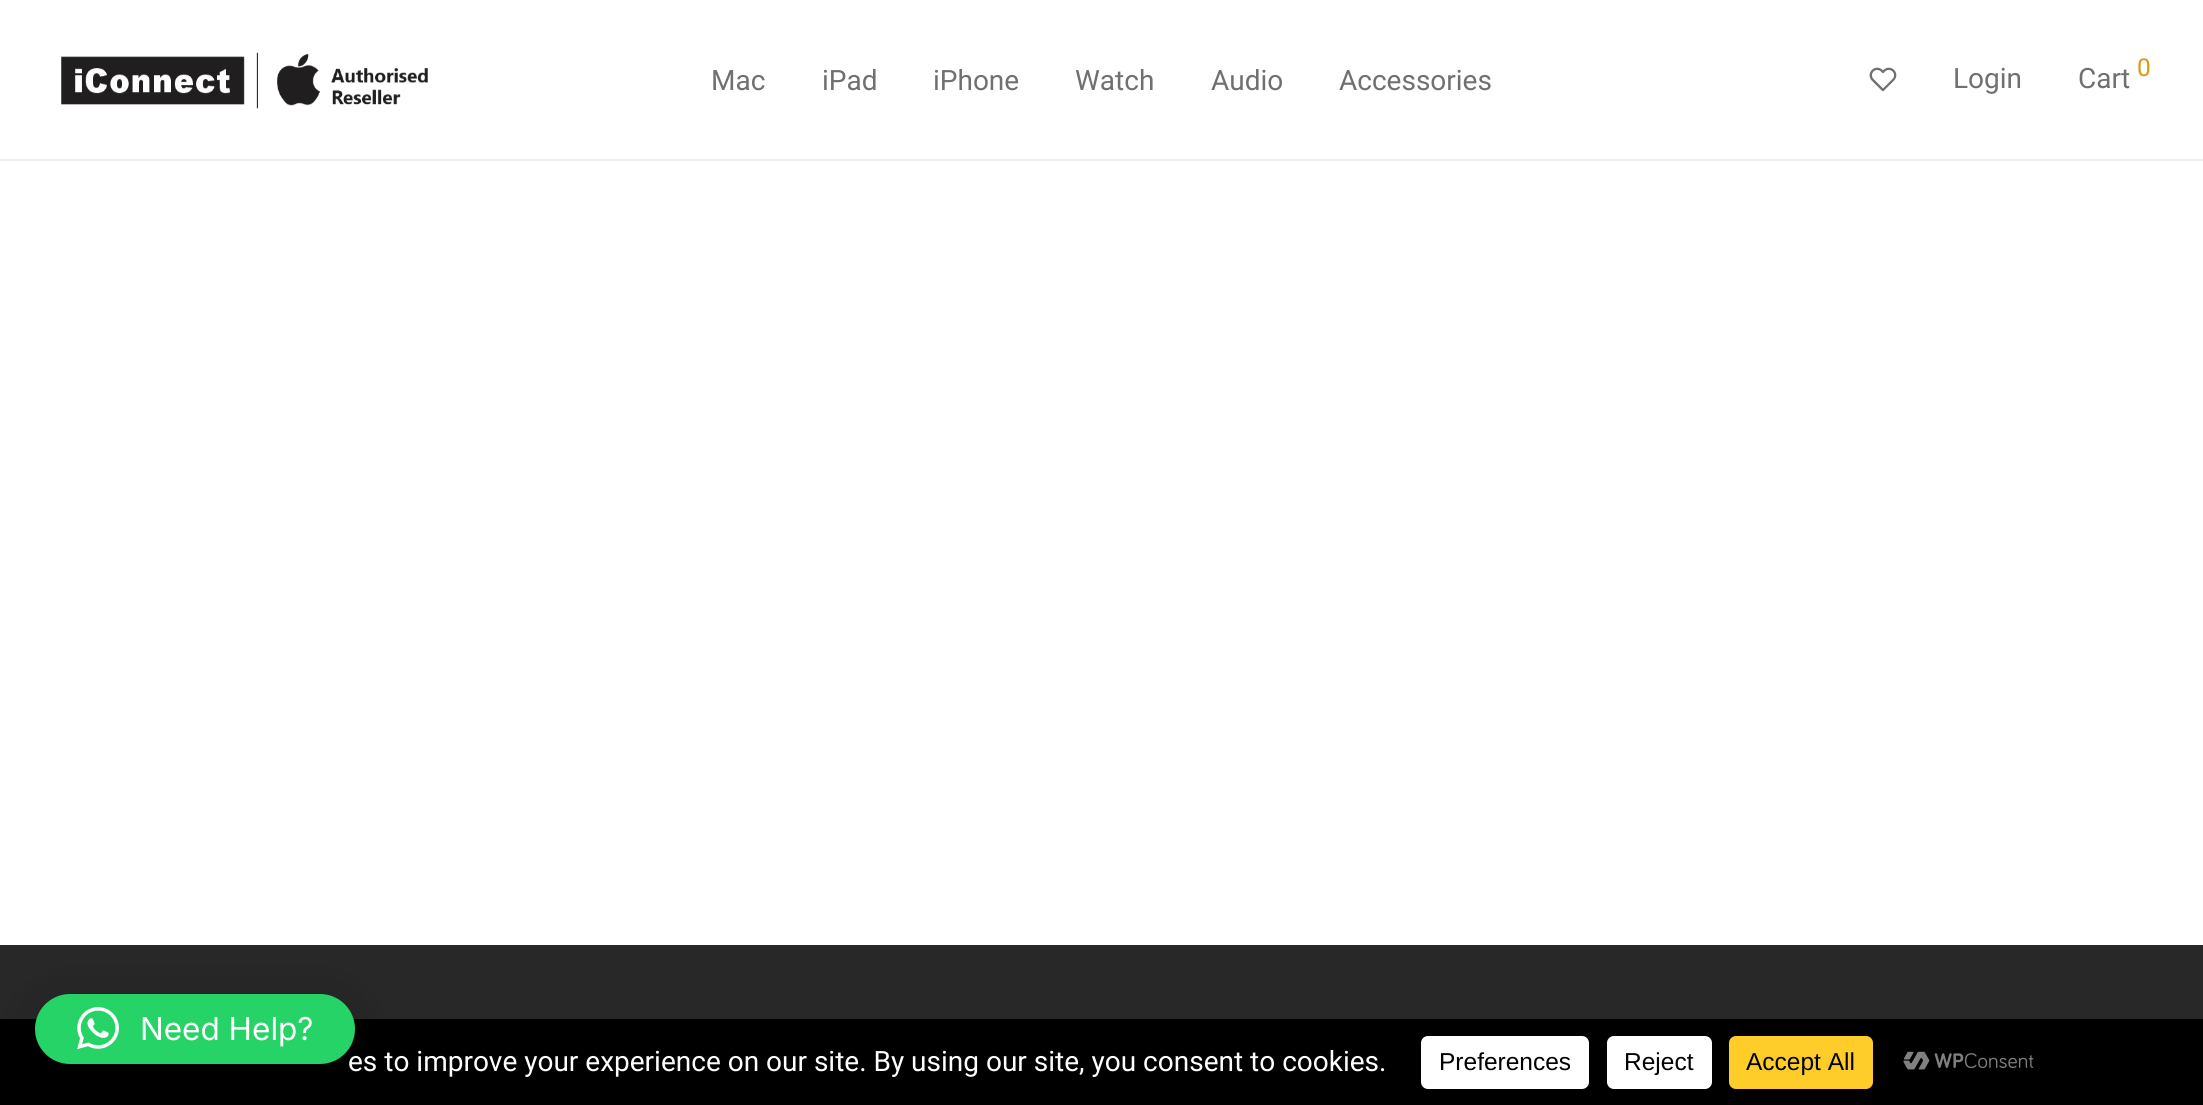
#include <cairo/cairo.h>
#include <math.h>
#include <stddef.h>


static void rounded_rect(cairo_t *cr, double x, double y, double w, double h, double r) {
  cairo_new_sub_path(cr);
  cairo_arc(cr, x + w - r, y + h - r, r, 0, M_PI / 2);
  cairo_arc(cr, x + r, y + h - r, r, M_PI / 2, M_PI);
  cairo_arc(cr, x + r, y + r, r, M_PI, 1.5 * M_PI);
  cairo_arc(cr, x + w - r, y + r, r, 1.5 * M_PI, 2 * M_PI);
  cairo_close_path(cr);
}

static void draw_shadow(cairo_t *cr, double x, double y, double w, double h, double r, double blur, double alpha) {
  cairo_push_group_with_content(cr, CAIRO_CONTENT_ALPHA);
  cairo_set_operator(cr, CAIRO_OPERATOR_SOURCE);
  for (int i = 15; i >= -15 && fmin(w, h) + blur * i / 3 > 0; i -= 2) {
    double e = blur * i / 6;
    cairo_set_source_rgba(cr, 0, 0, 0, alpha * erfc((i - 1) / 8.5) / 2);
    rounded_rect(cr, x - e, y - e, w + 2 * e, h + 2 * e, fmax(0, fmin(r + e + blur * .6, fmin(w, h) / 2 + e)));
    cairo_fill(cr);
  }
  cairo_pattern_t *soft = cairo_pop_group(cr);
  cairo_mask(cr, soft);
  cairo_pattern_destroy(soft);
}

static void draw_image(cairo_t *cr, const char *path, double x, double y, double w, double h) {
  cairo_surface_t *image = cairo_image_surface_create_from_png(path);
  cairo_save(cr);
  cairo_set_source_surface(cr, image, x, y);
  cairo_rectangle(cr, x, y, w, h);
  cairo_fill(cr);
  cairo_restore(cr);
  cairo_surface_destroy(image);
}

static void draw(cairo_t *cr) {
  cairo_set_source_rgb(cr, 1, 1, 1);
  cairo_paint(cr);
  cairo_set_source_rgb(cr, 238 / 255.0, 238 / 255.0, 238 / 255.0);
  cairo_rectangle(cr, 0, 159, 2203, 2);
  cairo_fill(cr);
  draw_image(cr, "images/1.png", 61, 52, 367, 57);
  draw_image(cr, "images/2.png", 1869, 67, 28, 25);
  cairo_set_source_rgb(cr, 40 / 255.0, 40 / 255.0, 40 / 255.0);
  cairo_rectangle(cr, 0, 945, 2203, 74);
  cairo_fill(cr);
  cairo_set_source_rgb(cr, 0, 0, 0);
  cairo_rectangle(cr, 0, 1019, 2203, 86);
  cairo_fill(cr);
  cairo_set_source_rgb(cr, 0, 0, 0);
  draw_shadow(cr, 35, 998, 320, 70, 35, 28, 0.16);
  cairo_set_source_rgb(cr, 1, 1, 1);
  rounded_rect(cr, 1421, 1036, 168, 53, 7);
  cairo_fill(cr);
  rounded_rect(cr, 1607, 1036, 105, 53, 7);
  cairo_fill(cr);
  cairo_set_source_rgb(cr, 1, 205 / 255.0, 42 / 255.0);
  rounded_rect(cr, 1729, 1036, 144, 53, 7);
  cairo_fill(cr);
  draw_image(cr, "images/4.png", 1903, 1051, 131, 19);
  cairo_select_font_face(cr, "Roboto", CAIRO_FONT_SLANT_NORMAL, CAIRO_FONT_WEIGHT_NORMAL);
  cairo_set_font_size(cr, 28);
  cairo_set_source_rgb(cr, 112 / 255.0, 112 / 255.0, 112 / 255.0);
  cairo_move_to(cr, 711, 90);
  cairo_show_text(cr, "Mac");
  cairo_move_to(cr, 822, 90);
  cairo_show_text(cr, "iPad");
  cairo_move_to(cr, 933, 90);
  cairo_show_text(cr, "iPhone");
  cairo_move_to(cr, 1075, 90);
  cairo_show_text(cr, "Watch");
  cairo_move_to(cr, 1211, 90);
  cairo_show_text(cr, "Audio");
  cairo_move_to(cr, 1339, 90);
  cairo_show_text(cr, "Accessories");
  cairo_move_to(cr, 1953, 88);
  cairo_show_text(cr, "Login");
  cairo_move_to(cr, 2078, 88);
  cairo_show_text(cr, "Cart");
  cairo_set_font_size(cr, 24.5);
  cairo_set_source_rgb(cr, 220 / 255.0, 152 / 255.0, 20 / 255.0);
  cairo_move_to(cr, 2137, 76);
  cairo_show_text(cr, "0");
  cairo_set_font_size(cr, 28);
  cairo_set_source_rgb(cr, 1, 1, 1);
  cairo_move_to(cr, 348, 1071);
  cairo_show_text(cr, "es to improve your experience on our site. By using our site, you consent to cookies.");
  cairo_set_source_rgb(cr, 37 / 255.0, 211 / 255.0, 102 / 255.0);
  rounded_rect(cr, 35, 994, 320, 70, 35);
  cairo_fill(cr);
  cairo_select_font_face(cr, "Inter", CAIRO_FONT_SLANT_NORMAL, CAIRO_FONT_WEIGHT_NORMAL);
  cairo_set_font_size(cr, 31.5);
  cairo_set_source_rgb(cr, 1, 1, 1);
  cairo_move_to(cr, 140, 1040);
  cairo_show_text(cr, "Need Help?");
  draw_image(cr, "images/3.png", 77, 1007, 42, 43);
  cairo_select_font_face(cr, "Liberation Sans", CAIRO_FONT_SLANT_NORMAL, CAIRO_FONT_WEIGHT_NORMAL);
  cairo_set_font_size(cr, 24.5);
  cairo_set_source_rgb(cr, 0, 0, 0);
  cairo_move_to(cr, 1439, 1070);
  cairo_show_text(cr, "Preferences");
  cairo_move_to(cr, 1624, 1070);
  cairo_show_text(cr, "Reject");
  cairo_move_to(cr, 1746, 1070);
  cairo_show_text(cr, "Accept All");
}

int main(void) {
  cairo_surface_t *surface = cairo_image_surface_create(CAIRO_FORMAT_RGB24, 2203, 1105);
  cairo_t *cr = cairo_create(surface);
  cairo_font_options_t *options = cairo_font_options_create();
  cairo_font_options_set_hint_metrics(options, CAIRO_HINT_METRICS_OFF);
  cairo_font_options_set_hint_style(options, CAIRO_HINT_STYLE_NONE);
  cairo_set_font_options(cr, options);
  cairo_set_miter_limit(cr, 4);
  draw(cr);
  cairo_surface_write_to_png(surface, "out.png");
  cairo_font_options_destroy(options);
  cairo_destroy(cr);
  cairo_surface_destroy(surface);
  return 0;
}
